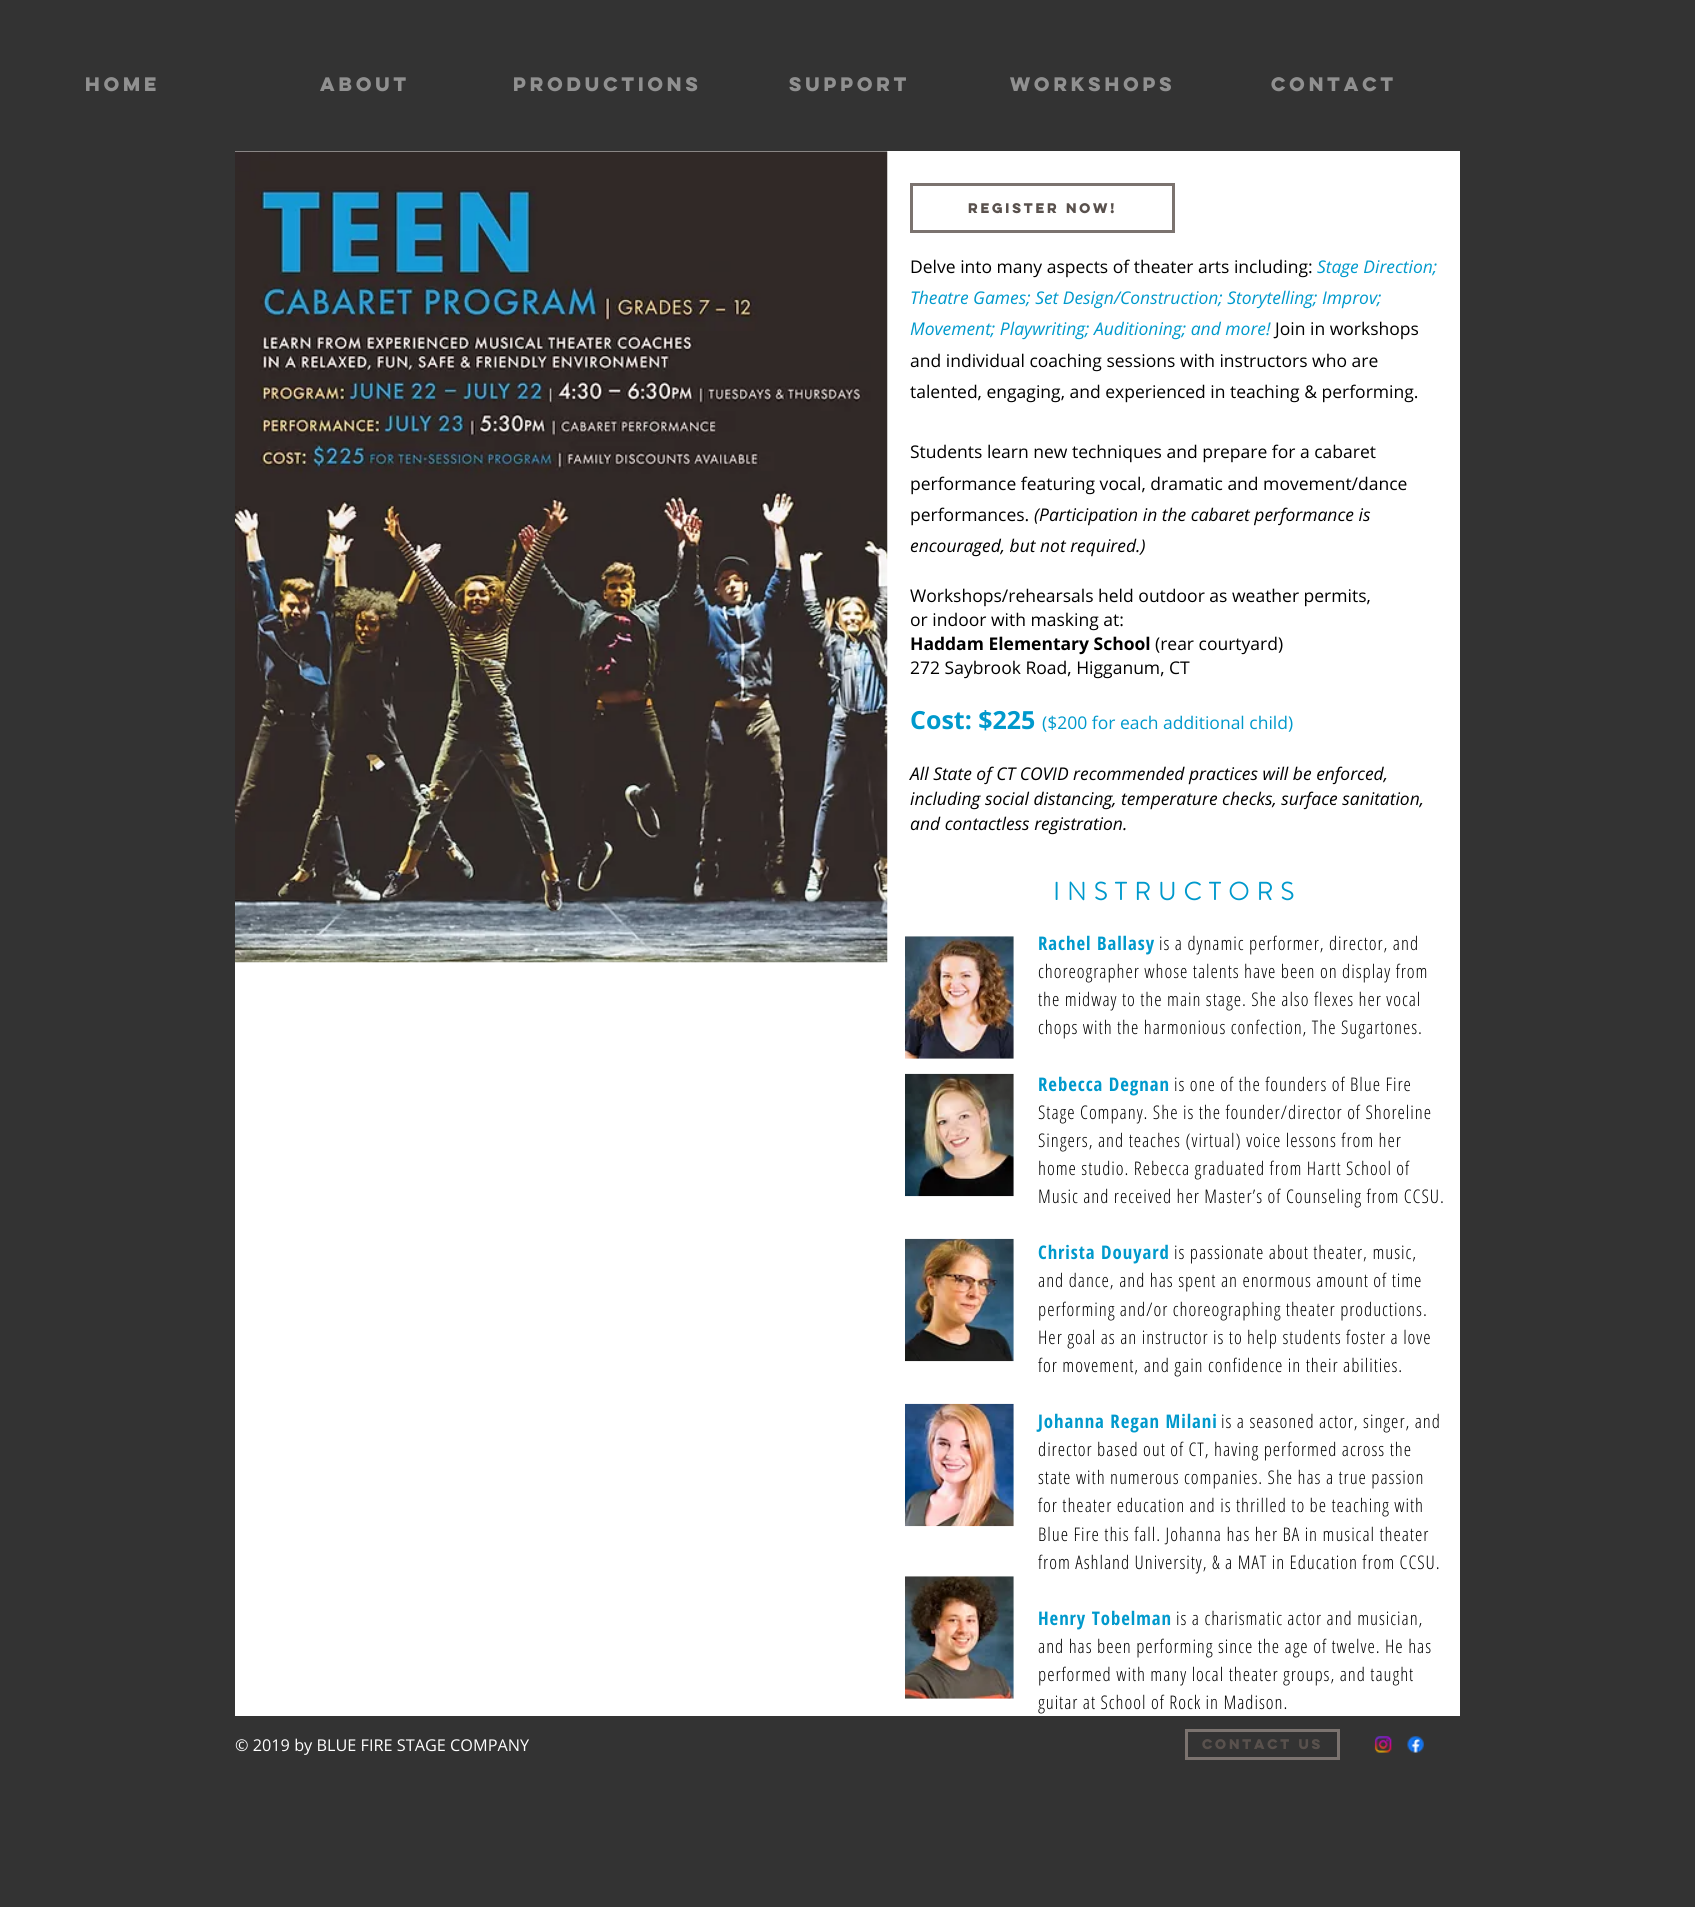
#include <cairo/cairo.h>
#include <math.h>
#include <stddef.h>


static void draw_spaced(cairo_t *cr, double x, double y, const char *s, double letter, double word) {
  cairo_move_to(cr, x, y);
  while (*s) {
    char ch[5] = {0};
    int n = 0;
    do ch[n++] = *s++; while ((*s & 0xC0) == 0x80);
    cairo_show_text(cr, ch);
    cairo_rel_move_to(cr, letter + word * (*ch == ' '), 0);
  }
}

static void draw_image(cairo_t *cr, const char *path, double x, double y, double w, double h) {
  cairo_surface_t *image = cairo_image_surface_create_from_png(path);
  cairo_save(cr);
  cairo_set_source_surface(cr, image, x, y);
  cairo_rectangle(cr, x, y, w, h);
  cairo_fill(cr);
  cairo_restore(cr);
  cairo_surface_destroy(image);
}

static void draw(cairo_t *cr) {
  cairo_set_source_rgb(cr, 51 / 255.0, 51 / 255.0, 51 / 255.0);
  cairo_paint(cr);
  cairo_set_source_rgb(cr, 1, 1, 1);
  cairo_rectangle(cr, 235, 151, 1225, 1565);
  cairo_fill(cr);
  draw_image(cr, "images/1.png", 235, 151, 653, 812);
  cairo_rectangle(cr, 911.5, 184.5, 262, 47);
  cairo_set_source_rgb(cr, 123 / 255.0, 115 / 255.0, 111 / 255.0);
  cairo_set_line_width(cr, 3);
  cairo_stroke(cr);
  draw_image(cr, "images/2.png", 905, 936, 109, 123);
  draw_image(cr, "images/3.png", 905, 1073, 109, 124);
  draw_image(cr, "images/4.png", 905, 1238, 109, 124);
  draw_image(cr, "images/5.png", 905, 1403, 109, 124);
  draw_image(cr, "images/6.png", 905, 1576, 109, 123);
  cairo_rectangle(cr, 1186.5, 1730.5, 152, 28);
  cairo_stroke(cr);
  draw_image(cr, "images/7.png", 1374, 1736, 18, 17);
  draw_image(cr, "images/8.png", 1407, 1736, 17, 17);
  cairo_select_font_face(cr, "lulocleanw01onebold", CAIRO_FONT_SLANT_NORMAL, CAIRO_FONT_WEIGHT_BOLD);
  cairo_set_font_size(cr, 17.5);
  cairo_set_source_rgb(cr, 144 / 255.0, 144 / 255.0, 144 / 255.0);
  cairo_move_to(cr, 85, 91);
  cairo_show_text(cr, "HOME");
  cairo_move_to(cr, 320, 91);
  cairo_show_text(cr, "ABOUT");
  cairo_move_to(cr, 513, 91);
  cairo_show_text(cr, "PRODUCTIONS");
  cairo_move_to(cr, 789, 91);
  cairo_show_text(cr, "SUPPORT");
  cairo_move_to(cr, 1010, 91);
  cairo_show_text(cr, "WORKSHOPS");
  cairo_move_to(cr, 1271, 91);
  cairo_show_text(cr, "CONTACT");
  cairo_set_font_size(cr, 12.5);
  cairo_set_source_rgb(cr, 89 / 255.0, 81 / 255.0, 77 / 255.0);
  cairo_move_to(cr, 968, 213);
  cairo_show_text(cr, "REGISTER NOW!");
  cairo_select_font_face(cr, "Open Sans", CAIRO_FONT_SLANT_NORMAL, CAIRO_FONT_WEIGHT_NORMAL);
  cairo_set_font_size(cr, 17.5);
  cairo_set_source_rgb(cr, 0, 0, 0);
  cairo_move_to(cr, 910, 273);
  cairo_show_text(cr, "Delve into many aspects of theater arts including:");
  cairo_select_font_face(cr, "Open Sans", CAIRO_FONT_SLANT_ITALIC, CAIRO_FONT_WEIGHT_NORMAL);
  cairo_set_source_rgb(cr, 0, 153 / 255.0, 204 / 255.0);
  cairo_move_to(cr, 1317, 273);
  cairo_show_text(cr, "Stage Direction;");
  cairo_move_to(cr, 910, 304);
  cairo_show_text(cr, "Theatre Games; Set Design/Construction; Storytelling; Improv;");
  cairo_move_to(cr, 910, 335);
  cairo_show_text(cr, "Movement; Playwriting; Auditioning; and more!");
  cairo_select_font_face(cr, "Open Sans", CAIRO_FONT_SLANT_NORMAL, CAIRO_FONT_WEIGHT_NORMAL);
  cairo_set_source_rgb(cr, 0, 0, 0);
  cairo_move_to(cr, 1275, 335);
  cairo_show_text(cr, "Join in workshops");
  cairo_move_to(cr, 910, 367);
  cairo_show_text(cr, "and individual coaching sessions with instructors who are");
  cairo_move_to(cr, 910, 398);
  cairo_show_text(cr, "talented, engaging, and experienced in teaching & performing.");
  cairo_move_to(cr, 910, 458);
  cairo_show_text(cr, "Students learn new techniques and prepare for a cabaret");
  cairo_move_to(cr, 910, 490);
  cairo_show_text(cr, "performance featuring vocal, dramatic and movement/dance");
  cairo_move_to(cr, 910, 521);
  cairo_show_text(cr, "performances.");
  cairo_select_font_face(cr, "Open Sans", CAIRO_FONT_SLANT_ITALIC, CAIRO_FONT_WEIGHT_NORMAL);
  cairo_move_to(cr, 1034, 521);
  cairo_show_text(cr, "(Participation in the cabaret performance is");
  cairo_move_to(cr, 910, 552);
  cairo_show_text(cr, "encouraged, but not required.)");
  cairo_select_font_face(cr, "Open Sans", CAIRO_FONT_SLANT_NORMAL, CAIRO_FONT_WEIGHT_NORMAL);
  cairo_move_to(cr, 910, 602);
  cairo_show_text(cr, "Workshops/rehearsals held outdoor as weather permits,");
  cairo_move_to(cr, 910, 626);
  cairo_show_text(cr, "or indoor with masking at:");
  cairo_select_font_face(cr, "Open Sans", CAIRO_FONT_SLANT_NORMAL, CAIRO_FONT_WEIGHT_BOLD);
  cairo_move_to(cr, 910, 650);
  cairo_show_text(cr, "Haddam Elementary School");
  cairo_select_font_face(cr, "Open Sans", CAIRO_FONT_SLANT_NORMAL, CAIRO_FONT_WEIGHT_NORMAL);
  cairo_move_to(cr, 1155, 650);
  cairo_show_text(cr, "(rear courtyard)");
  cairo_move_to(cr, 910, 674);
  cairo_show_text(cr, "272 Saybrook Road, Higganum, CT");
  cairo_select_font_face(cr, "Open Sans", CAIRO_FONT_SLANT_NORMAL, CAIRO_FONT_WEIGHT_BOLD);
  cairo_set_font_size(cr, 25);
  cairo_set_source_rgb(cr, 0, 153 / 255.0, 204 / 255.0);
  cairo_move_to(cr, 910, 729);
  cairo_show_text(cr, "Cost: $225");
  cairo_select_font_face(cr, "Open Sans", CAIRO_FONT_SLANT_NORMAL, CAIRO_FONT_WEIGHT_NORMAL);
  cairo_set_font_size(cr, 17.5);
  cairo_move_to(cr, 1042, 729);
  cairo_show_text(cr, "($200 for each additional child)");
  cairo_select_font_face(cr, "Open Sans", CAIRO_FONT_SLANT_ITALIC, CAIRO_FONT_WEIGHT_NORMAL);
  cairo_set_source_rgb(cr, 0, 0, 0);
  cairo_move_to(cr, 910, 780);
  cairo_show_text(cr, "All State of CT COVID recommended practices will be enforced,");
  cairo_move_to(cr, 910, 805);
  cairo_show_text(cr, "including social distancing, temperature checks, surface sanitation,");
  cairo_move_to(cr, 910, 830);
  cairo_show_text(cr, "and contactless registration.");
  cairo_select_font_face(cr, "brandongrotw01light", CAIRO_FONT_SLANT_NORMAL, CAIRO_FONT_WEIGHT_BOLD);
  cairo_set_font_size(cr, 25);
  cairo_set_source_rgb(cr, 0, 153 / 255.0, 204 / 255.0);
  draw_spaced(cr, 1053, 900, "INSTRUCTORS", 7.5, 0);
  cairo_select_font_face(cr, "Open Sans Condensed", CAIRO_FONT_SLANT_NORMAL, CAIRO_FONT_WEIGHT_BOLD);
  cairo_set_font_size(cr, 18.75);
  draw_spaced(cr, 1038, 950, "Rachel Ballasy", 0.95, 0);
  cairo_select_font_face(cr, "Open Sans Condensed Light", CAIRO_FONT_SLANT_NORMAL, CAIRO_FONT_WEIGHT_NORMAL);
  cairo_set_source_rgb(cr, 0, 0, 0);
  draw_spaced(cr, 1159, 950, "is a dynamic performer, director, and", 0.95, 0);
  draw_spaced(cr, 1038, 978, "choreographer whose talents have been on display from", 0.95, 0);
  draw_spaced(cr, 1038, 1006, "the midway to the main stage. She also flexes her vocal", 0.95, 0);
  draw_spaced(cr, 1038, 1034, "chops with the harmonious confection, The Sugartones.", 0.95, 0);
  cairo_select_font_face(cr, "Open Sans Condensed", CAIRO_FONT_SLANT_NORMAL, CAIRO_FONT_WEIGHT_BOLD);
  cairo_set_source_rgb(cr, 0, 153 / 255.0, 204 / 255.0);
  draw_spaced(cr, 1038, 1091, "Rebecca Degnan", 0.95, 0);
  cairo_select_font_face(cr, "Open Sans Condensed Light", CAIRO_FONT_SLANT_NORMAL, CAIRO_FONT_WEIGHT_NORMAL);
  cairo_set_source_rgb(cr, 0, 0, 0);
  draw_spaced(cr, 1174, 1091, "is one of the founders of Blue Fire", 0.95, 0);
  draw_spaced(cr, 1038, 1119, "Stage Company. She is the founder/director of Shoreline", 0.95, 0);
  draw_spaced(cr, 1038, 1147, "Singers, and teaches (virtual) voice lessons from her", 0.95, 0);
  draw_spaced(cr, 1038, 1175, "home studio. Rebecca graduated from Hartt School of", 0.95, 0);
  draw_spaced(cr, 1038, 1203, "Music and received her Master’s of Counseling from CCSU.", 0.95, 0);
  cairo_select_font_face(cr, "Open Sans Condensed", CAIRO_FONT_SLANT_NORMAL, CAIRO_FONT_WEIGHT_BOLD);
  cairo_set_source_rgb(cr, 0, 153 / 255.0, 204 / 255.0);
  draw_spaced(cr, 1038, 1259, "Christa Douyard", 0.95, 0);
  cairo_select_font_face(cr, "Open Sans Condensed Light", CAIRO_FONT_SLANT_NORMAL, CAIRO_FONT_WEIGHT_NORMAL);
  cairo_set_source_rgb(cr, 0, 0, 0);
  draw_spaced(cr, 1174, 1259, "is passionate about theater, music,", 0.95, 0);
  draw_spaced(cr, 1038, 1287, "and dance, and has spent an enormous amount of time", 0.95, 0);
  draw_spaced(cr, 1038, 1316, "performing and/or choreographing theater productions.", 0.95, 0);
  draw_spaced(cr, 1038, 1344, "Her goal as an instructor is to help students foster a love", 0.95, 0);
  draw_spaced(cr, 1038, 1372, "for movement, and gain confidence in their abilities.", 0.95, 0);
  cairo_select_font_face(cr, "Open Sans Condensed", CAIRO_FONT_SLANT_NORMAL, CAIRO_FONT_WEIGHT_BOLD);
  cairo_set_source_rgb(cr, 0, 153 / 255.0, 204 / 255.0);
  draw_spaced(cr, 1038, 1428, "Johanna Regan Milani", 0.95, 0);
  cairo_select_font_face(cr, "Open Sans Condensed Light", CAIRO_FONT_SLANT_NORMAL, CAIRO_FONT_WEIGHT_NORMAL);
  cairo_set_source_rgb(cr, 0, 0, 0);
  draw_spaced(cr, 1221, 1428, "is a seasoned actor, singer, and", 0.95, 0);
  draw_spaced(cr, 1038, 1456, "director based out of CT, having performed across the", 0.95, 0);
  draw_spaced(cr, 1038, 1484, "state with numerous companies. She has a true passion", 0.95, 0);
  draw_spaced(cr, 1038, 1512, "for theater education and is thrilled to be teaching with", 0.95, 0);
  draw_spaced(cr, 1038, 1541, "Blue Fire this fall. Johanna has her BA in musical theater", 0.95, 0);
  draw_spaced(cr, 1038, 1569, "from Ashland University, & a MAT in Education from CCSU.", 0.95, 0);
  cairo_select_font_face(cr, "Open Sans Condensed", CAIRO_FONT_SLANT_NORMAL, CAIRO_FONT_WEIGHT_BOLD);
  cairo_set_source_rgb(cr, 0, 153 / 255.0, 204 / 255.0);
  draw_spaced(cr, 1038, 1625, "Henry Tobelman", 0.95, 0);
  cairo_select_font_face(cr, "Open Sans Condensed Light", CAIRO_FONT_SLANT_NORMAL, CAIRO_FONT_WEIGHT_NORMAL);
  cairo_set_source_rgb(cr, 0, 0, 0);
  draw_spaced(cr, 1176, 1625, "is a charismatic actor and musician,", 0.95, 0);
  draw_spaced(cr, 1038, 1653, "and has been performing since the age of twelve. He has", 0.95, 0);
  draw_spaced(cr, 1038, 1681, "performed with many local theater groups, and taught", 0.95, 0);
  draw_spaced(cr, 1038, 1709, "guitar at School of Rock in Madison.", 0.95, 0);
  cairo_select_font_face(cr, "Open Sans", CAIRO_FONT_SLANT_NORMAL, CAIRO_FONT_WEIGHT_NORMAL);
  cairo_set_font_size(cr, 16.25);
  cairo_set_source_rgb(cr, 1, 1, 1);
  cairo_move_to(cr, 235, 1751);
  cairo_show_text(cr, "© 2019 by BLUE FIRE STAGE COMPANY");
  cairo_select_font_face(cr, "lulocleanw01onebold", CAIRO_FONT_SLANT_NORMAL, CAIRO_FONT_WEIGHT_BOLD);
  cairo_set_font_size(cr, 12.5);
  cairo_set_source_rgb(cr, 89 / 255.0, 81 / 255.0, 77 / 255.0);
  cairo_move_to(cr, 1202, 1749);
  cairo_show_text(cr, "Contact us");
}

int main(void) {
  cairo_surface_t *surface = cairo_image_surface_create(CAIRO_FORMAT_RGB24, 1695, 1907);
  cairo_t *cr = cairo_create(surface);
  cairo_font_options_t *options = cairo_font_options_create();
  cairo_font_options_set_hint_metrics(options, CAIRO_HINT_METRICS_OFF);
  cairo_font_options_set_hint_style(options, CAIRO_HINT_STYLE_NONE);
  cairo_set_font_options(cr, options);
  cairo_set_miter_limit(cr, 4);
  draw(cr);
  cairo_surface_write_to_png(surface, "out.png");
  cairo_font_options_destroy(options);
  cairo_destroy(cr);
  cairo_surface_destroy(surface);
  return 0;
}
